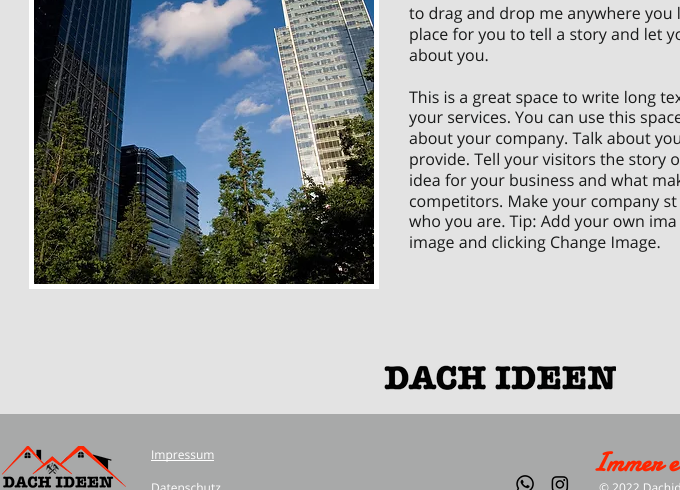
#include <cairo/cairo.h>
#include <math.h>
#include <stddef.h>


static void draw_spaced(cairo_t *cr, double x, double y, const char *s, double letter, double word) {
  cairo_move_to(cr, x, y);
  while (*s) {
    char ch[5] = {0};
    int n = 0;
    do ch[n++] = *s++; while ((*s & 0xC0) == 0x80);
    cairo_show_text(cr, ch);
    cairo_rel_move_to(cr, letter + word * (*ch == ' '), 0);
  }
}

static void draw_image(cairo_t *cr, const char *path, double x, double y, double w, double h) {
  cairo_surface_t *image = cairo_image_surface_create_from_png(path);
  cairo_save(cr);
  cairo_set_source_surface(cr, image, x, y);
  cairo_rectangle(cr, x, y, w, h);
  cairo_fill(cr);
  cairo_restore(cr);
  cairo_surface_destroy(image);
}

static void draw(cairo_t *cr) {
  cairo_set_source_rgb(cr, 227 / 255.0, 227 / 255.0, 227 / 255.0);
  cairo_paint(cr);
  cairo_set_source_rgb(cr, 1, 1, 1);
  cairo_rectangle(cr, 29, 0, 350, 289);
  cairo_fill(cr);
  draw_image(cr, "images/1.png", 34, 0, 340, 284);
  draw_image(cr, "images/2.png", 384, 365, 232, 25);
  cairo_set_source_rgb(cr, 168 / 255.0, 169 / 255.0, 169 / 255.0);
  cairo_rectangle(cr, 0, 414, 680, 76);
  cairo_fill(cr);
  draw_image(cr, "images/3.png", 1, 446, 125, 42);
  cairo_set_source_rgb(cr, 1, 1, 1);
  cairo_rectangle(cr, 151, 460, 63, 1);
  cairo_fill(cr);
  draw_image(cr, "images/4.png", 516, 475, 18, 15);
  draw_image(cr, "images/5.png", 551, 476, 18, 14);
  cairo_select_font_face(cr, "Open Sans", CAIRO_FONT_SLANT_NORMAL, CAIRO_FONT_WEIGHT_NORMAL);
  cairo_set_font_size(cr, 16);
  cairo_set_source_rgb(cr, 24 / 255.0, 25 / 255.0, 25 / 255.0);
  cairo_move_to(cr, 409, 19);
  cairo_show_text(cr, "to drag and drop me anywhere you l");
  cairo_move_to(cr, 409, 40);
  cairo_show_text(cr, "place for you to tell a story and let yo");
  cairo_move_to(cr, 409, 61);
  cairo_show_text(cr, "about you.");
  cairo_move_to(cr, 409, 103);
  cairo_show_text(cr, "This is a great space to write long tex");
  cairo_move_to(cr, 409, 123);
  cairo_show_text(cr, "your services. You can use this space");
  cairo_move_to(cr, 409, 144);
  cairo_show_text(cr, "about your company. Talk about you");
  cairo_move_to(cr, 409, 165);
  cairo_show_text(cr, "provide. Tell your visitors the story o");
  cairo_move_to(cr, 409, 186);
  cairo_show_text(cr, "idea for your business and what mak");
  cairo_move_to(cr, 409, 207);
  cairo_show_text(cr, "competitors. Make your company st");
  cairo_move_to(cr, 409, 227);
  cairo_show_text(cr, "who you are. Tip: Add your own ima");
  cairo_move_to(cr, 409, 248);
  cairo_show_text(cr, "image and clicking Change Image.");
  cairo_set_font_size(cr, 12);
  cairo_set_source_rgb(cr, 1, 1, 1);
  cairo_move_to(cr, 151, 459);
  cairo_show_text(cr, "Impressum");
  cairo_select_font_face(cr, "Damion", CAIRO_FONT_SLANT_NORMAL, CAIRO_FONT_WEIGHT_BOLD);
  cairo_set_font_size(cr, 27);
  cairo_set_source_rgb(cr, 1, 38 / 255.0, 0);
  draw_spaced(cr, 592, 471, "Immer e", 0.25, 0);
  cairo_select_font_face(cr, "Open Sans", CAIRO_FONT_SLANT_NORMAL, CAIRO_FONT_WEIGHT_NORMAL);
  cairo_set_font_size(cr, 12);
  cairo_set_source_rgb(cr, 1, 1, 1);
  cairo_move_to(cr, 151, 492);
  cairo_show_text(cr, "Datenschutz");
  cairo_move_to(cr, 599, 492);
  cairo_show_text(cr, "© 2022 Dachid");
}

int main(void) {
  cairo_surface_t *surface = cairo_image_surface_create(CAIRO_FORMAT_RGB24, 680, 490);
  cairo_t *cr = cairo_create(surface);
  cairo_font_options_t *options = cairo_font_options_create();
  cairo_font_options_set_hint_metrics(options, CAIRO_HINT_METRICS_OFF);
  cairo_font_options_set_hint_style(options, CAIRO_HINT_STYLE_NONE);
  cairo_set_font_options(cr, options);
  cairo_set_miter_limit(cr, 4);
  draw(cr);
  cairo_surface_write_to_png(surface, "out.png");
  cairo_font_options_destroy(options);
  cairo_destroy(cr);
  cairo_surface_destroy(surface);
  return 0;
}
